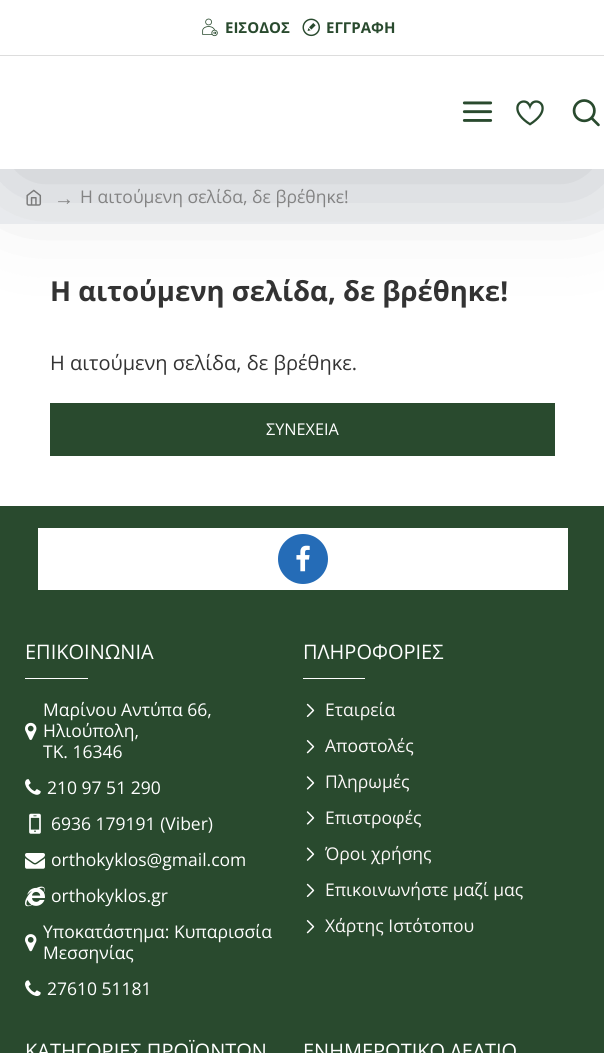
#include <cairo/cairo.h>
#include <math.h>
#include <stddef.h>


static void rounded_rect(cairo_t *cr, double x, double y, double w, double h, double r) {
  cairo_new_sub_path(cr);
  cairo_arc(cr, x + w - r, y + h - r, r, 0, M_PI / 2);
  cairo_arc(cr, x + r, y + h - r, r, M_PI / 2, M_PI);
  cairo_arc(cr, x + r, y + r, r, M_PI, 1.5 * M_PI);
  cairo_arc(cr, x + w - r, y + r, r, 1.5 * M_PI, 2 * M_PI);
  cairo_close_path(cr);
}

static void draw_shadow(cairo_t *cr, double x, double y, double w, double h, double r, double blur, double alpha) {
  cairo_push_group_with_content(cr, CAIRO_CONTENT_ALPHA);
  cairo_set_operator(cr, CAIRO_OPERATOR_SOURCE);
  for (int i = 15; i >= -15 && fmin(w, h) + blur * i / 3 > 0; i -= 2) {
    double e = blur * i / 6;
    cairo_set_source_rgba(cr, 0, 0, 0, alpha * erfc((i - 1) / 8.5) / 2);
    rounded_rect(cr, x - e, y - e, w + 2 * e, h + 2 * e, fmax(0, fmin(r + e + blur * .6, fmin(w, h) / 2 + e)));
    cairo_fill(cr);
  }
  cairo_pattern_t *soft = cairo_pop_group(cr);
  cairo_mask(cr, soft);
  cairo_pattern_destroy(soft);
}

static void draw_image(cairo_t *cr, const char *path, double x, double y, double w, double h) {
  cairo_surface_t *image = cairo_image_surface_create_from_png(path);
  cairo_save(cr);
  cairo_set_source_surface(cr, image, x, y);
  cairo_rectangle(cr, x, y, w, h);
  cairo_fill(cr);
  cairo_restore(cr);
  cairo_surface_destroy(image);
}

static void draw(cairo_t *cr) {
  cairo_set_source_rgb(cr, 1, 1, 1);
  cairo_paint(cr);
  cairo_set_source_rgb(cr, 240 / 255.0, 242 / 255.0, 245 / 255.0);
  cairo_rectangle(cr, 0, 169, 604, 55);
  cairo_fill(cr);
  draw_image(cr, "images/6.png", 26, 189, 16, 17);
  cairo_set_source_rgb(cr, 0, 0, 0);
  draw_shadow(cr, 13, 88, 580, 87, 0, 56, 0.2);
  cairo_set_source_rgb(cr, 1, 1, 1);
  cairo_rectangle(cr, 0, 56, 604, 113);
  cairo_fill(cr);
  draw_image(cr, "images/1.png", 462, 101, 31, 21);
  draw_image(cr, "images/2.png", 516, 100, 28, 26);
  draw_image(cr, "images/3.png", 572, 99, 28, 28);
  cairo_rectangle(cr, 0, 0, 604, 55);
  cairo_fill(cr);
  cairo_set_source_rgb(cr, 221 / 255.0, 221 / 255.0, 221 / 255.0);
  cairo_rectangle(cr, 0, 55, 604, 1);
  cairo_fill(cr);
  draw_image(cr, "images/4.png", 202, 18, 16, 19);
  draw_image(cr, "images/5.png", 302, 18, 18, 19);
  cairo_set_source_rgb(cr, 41 / 255.0, 74 / 255.0, 46 / 255.0);
  cairo_rectangle(cr, 50, 403, 505, 53);
  cairo_fill(cr);
  cairo_rectangle(cr, 0, 506, 604, 547);
  cairo_fill(cr);
  cairo_set_source_rgb(cr, 1, 1, 1);
  cairo_rectangle(cr, 38, 528, 530, 62);
  cairo_fill(cr);
  cairo_set_source_rgb(cr, 37 / 255.0, 108 / 255.0, 183 / 255.0);
  cairo_arc(cr, 303, 559, 25, 0, 2 * M_PI);
  cairo_fill(cr);
  draw_image(cr, "images/7.png", 296, 545, 14, 27);
  cairo_set_source_rgb(cr, 1, 1, 1);
  cairo_rectangle(cr, 25, 678, 63, 1);
  cairo_fill(cr);
  draw_image(cr, "images/8.png", 25, 722, 12, 18);
  draw_image(cr, "images/9.png", 25, 779, 16, 16);
  draw_image(cr, "images/10.png", 29, 813, 12, 21);
  draw_image(cr, "images/11.png", 25, 853, 20, 16);
  draw_image(cr, "images/12.png", 25, 886, 20, 21);
  draw_image(cr, "images/13.png", 25, 934, 12, 18);
  draw_image(cr, "images/14.png", 25, 980, 16, 16);
  cairo_rectangle(cr, 303, 678, 62, 1);
  cairo_fill(cr);
  draw_image(cr, "images/15.png", 306, 703, 9, 14);
  draw_image(cr, "images/16.png", 306, 740, 9, 14);
  draw_image(cr, "images/17.png", 306, 776, 9, 14);
  draw_image(cr, "images/17.png", 306, 811, 9, 14);
  draw_image(cr, "images/18.png", 306, 847, 9, 14);
  draw_image(cr, "images/15.png", 306, 883, 9, 14);
  draw_image(cr, "images/16.png", 306, 920, 9, 14);
  cairo_select_font_face(cr, "Open Sans", CAIRO_FONT_SLANT_NORMAL, CAIRO_FONT_WEIGHT_BOLD);
  cairo_set_font_size(cr, 15);
  cairo_set_source_rgb(cr, 41 / 255.0, 74 / 255.0, 46 / 255.0);
  cairo_move_to(cr, 225, 33);
  cairo_show_text(cr, "ΕΙΣΟΔΟΣ");
  cairo_move_to(cr, 326, 33);
  cairo_show_text(cr, "ΕΓΓΡΑΦΗ");
  cairo_select_font_face(cr, "Liberation Serif", CAIRO_FONT_SLANT_NORMAL, CAIRO_FONT_WEIGHT_NORMAL);
  cairo_set_font_size(cr, 20);
  cairo_set_source_rgb(cr, 131 / 255.0, 131 / 255.0, 131 / 255.0);
  cairo_move_to(cr, 54, 205);
  cairo_show_text(cr, "→");
  cairo_select_font_face(cr, "Open Sans", CAIRO_FONT_SLANT_NORMAL, CAIRO_FONT_WEIGHT_NORMAL);
  cairo_set_font_size(cr, 17.5);
  cairo_move_to(cr, 80, 203);
  cairo_show_text(cr, "Η αιτούμενη σελίδα, δε βρέθηκε!");
  cairo_select_font_face(cr, "Open Sans", CAIRO_FONT_SLANT_NORMAL, CAIRO_FONT_WEIGHT_BOLD);
  cairo_set_font_size(cr, 27.5);
  cairo_set_source_rgb(cr, 51 / 255.0, 51 / 255.0, 51 / 255.0);
  cairo_move_to(cr, 50, 301);
  cairo_show_text(cr, "Η αιτούμενη σελίδα, δε βρέθηκε!");
  cairo_select_font_face(cr, "Open Sans", CAIRO_FONT_SLANT_NORMAL, CAIRO_FONT_WEIGHT_NORMAL);
  cairo_set_font_size(cr, 20);
  cairo_move_to(cr, 50, 370);
  cairo_show_text(cr, "Η αιτούμενη σελίδα, δε βρέθηκε.");
  cairo_set_font_size(cr, 16.25);
  cairo_set_source_rgb(cr, 1, 1, 1);
  cairo_move_to(cr, 266, 435);
  cairo_show_text(cr, "ΣΥΝΕΧΕΙΑ");
  cairo_set_font_size(cr, 20);
  cairo_move_to(cr, 25, 659);
  cairo_show_text(cr, "ΕΠΙΚΟΙΝΩΝΙΑ");
  cairo_set_font_size(cr, 17.5);
  cairo_move_to(cr, 43, 716);
  cairo_show_text(cr, "Μαρίνου Αντύπα 66,");
  cairo_move_to(cr, 43, 737);
  cairo_show_text(cr, "Ηλιούπολη,");
  cairo_move_to(cr, 43, 758);
  cairo_show_text(cr, "ΤΚ. 16346");
  cairo_move_to(cr, 47, 794);
  cairo_show_text(cr, "210 97 51 290");
  cairo_move_to(cr, 51, 830);
  cairo_show_text(cr, "6936 179191 (Viber)");
  cairo_move_to(cr, 51, 866);
  cairo_show_text(cr, "orthokyklos@gmail.com");
  cairo_move_to(cr, 51, 902);
  cairo_show_text(cr, "orthokyklos.gr");
  cairo_move_to(cr, 43, 938);
  cairo_show_text(cr, "Υποκατάστημα: Κυπαρισσία");
  cairo_move_to(cr, 43, 959);
  cairo_show_text(cr, "Μεσσηνίας");
  cairo_move_to(cr, 47, 995);
  cairo_show_text(cr, "27610 51181");
  cairo_set_font_size(cr, 20);
  cairo_move_to(cr, 303, 659);
  cairo_show_text(cr, "ΠΛΗΡΟΦΟΡΙΕΣ");
  cairo_set_font_size(cr, 17.5);
  cairo_set_source_rgb(cr, 252 / 255.0, 248 / 255.0, 248 / 255.0);
  cairo_move_to(cr, 325, 716);
  cairo_show_text(cr, "Εταιρεία");
  cairo_move_to(cr, 325, 752);
  cairo_show_text(cr, "Αποστολές");
  cairo_move_to(cr, 325, 788);
  cairo_show_text(cr, "Πληρωμές");
  cairo_move_to(cr, 325, 824);
  cairo_show_text(cr, "Επιστροφές");
  cairo_move_to(cr, 325, 860);
  cairo_show_text(cr, "Όροι χρήσης");
  cairo_move_to(cr, 325, 896);
  cairo_show_text(cr, "Επικοινωνήστε μαζί μας");
  cairo_move_to(cr, 325, 932);
  cairo_show_text(cr, "Χάρτης Ιστότοπου");
  cairo_set_font_size(cr, 20);
  cairo_set_source_rgb(cr, 1, 1, 1);
  cairo_move_to(cr, 25, 1058);
  cairo_show_text(cr, "ΚΑΤΗΓΟΡΙΕΣ ΠΡΟΪΟΝΤΩΝ");
  cairo_move_to(cr, 303, 1058);
  cairo_show_text(cr, "ΕΝΗΜΕΡΩΤΙΚΟ ΔΕΛΤΙΟ");
}

int main(void) {
  cairo_surface_t *surface = cairo_image_surface_create(CAIRO_FORMAT_RGB24, 604, 1053);
  cairo_t *cr = cairo_create(surface);
  cairo_font_options_t *options = cairo_font_options_create();
  cairo_font_options_set_hint_metrics(options, CAIRO_HINT_METRICS_OFF);
  cairo_font_options_set_hint_style(options, CAIRO_HINT_STYLE_NONE);
  cairo_set_font_options(cr, options);
  cairo_set_miter_limit(cr, 4);
  draw(cr);
  cairo_surface_write_to_png(surface, "out.png");
  cairo_font_options_destroy(options);
  cairo_destroy(cr);
  cairo_surface_destroy(surface);
  return 0;
}
